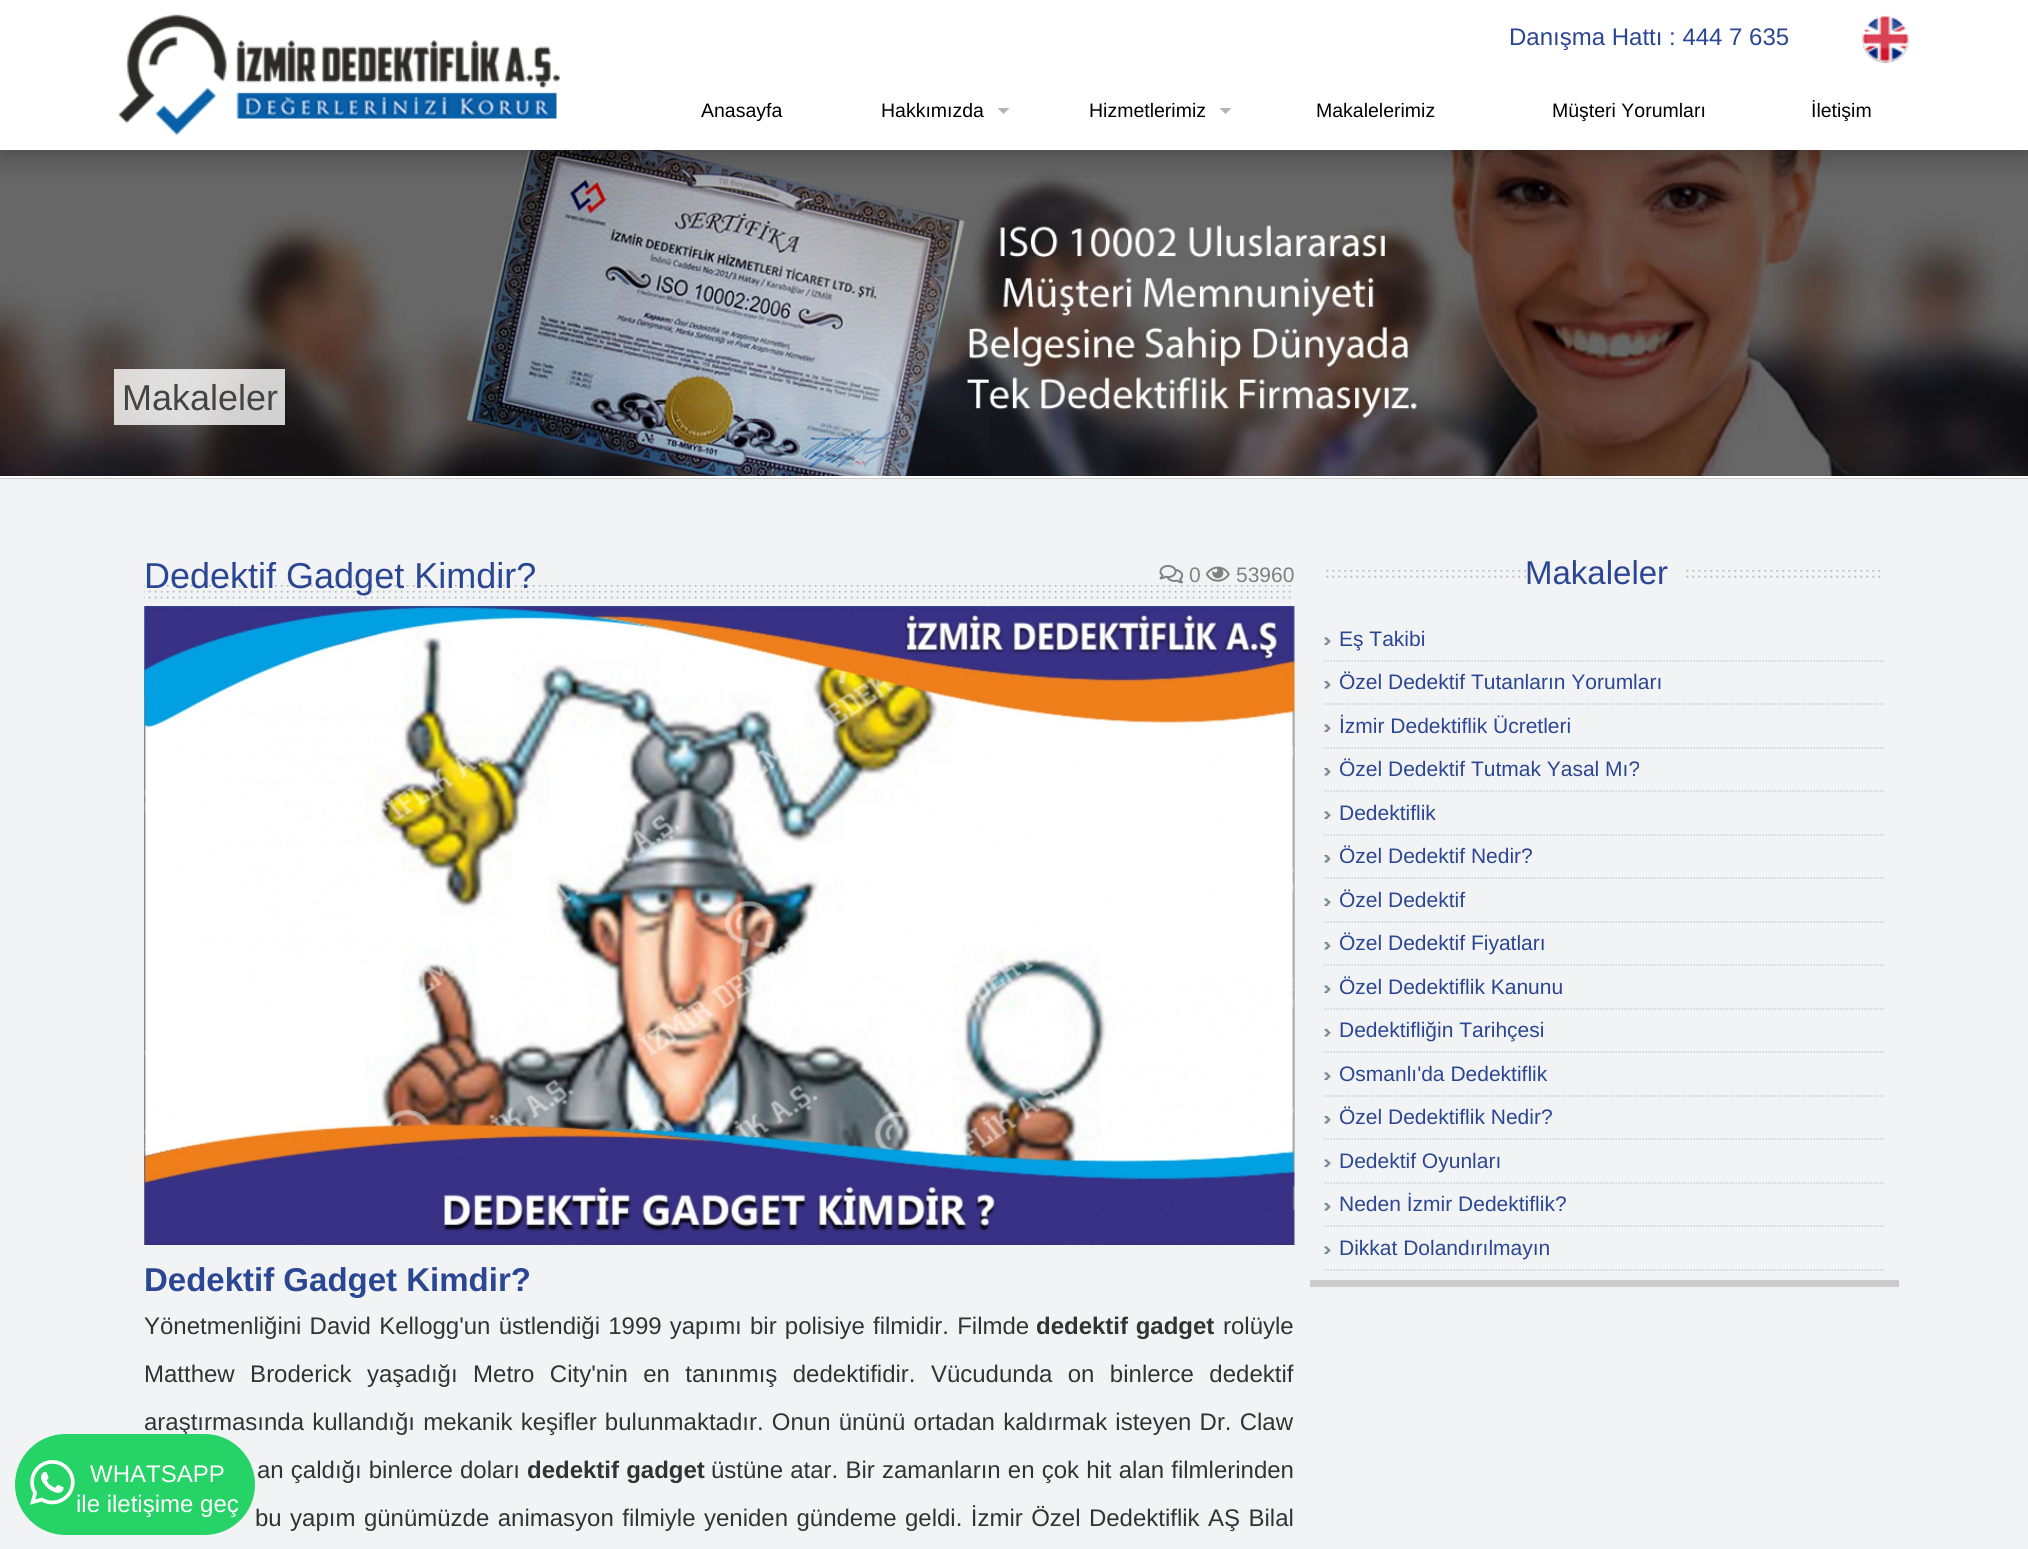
#include <cairo/cairo.h>
#include <math.h>
#include <stddef.h>


static void draw_spaced(cairo_t *cr, double x, double y, const char *s, double letter, double word) {
  cairo_move_to(cr, x, y);
  while (*s) {
    char ch[5] = {0};
    int n = 0;
    do ch[n++] = *s++; while ((*s & 0xC0) == 0x80);
    cairo_show_text(cr, ch);
    cairo_rel_move_to(cr, letter + word * (*ch == ' '), 0);
  }
}

static void rounded_rect(cairo_t *cr, double x, double y, double w, double h, double r) {
  cairo_new_sub_path(cr);
  cairo_arc(cr, x + w - r, y + h - r, r, 0, M_PI / 2);
  cairo_arc(cr, x + r, y + h - r, r, M_PI / 2, M_PI);
  cairo_arc(cr, x + r, y + r, r, M_PI, 1.5 * M_PI);
  cairo_arc(cr, x + w - r, y + r, r, 1.5 * M_PI, 2 * M_PI);
  cairo_close_path(cr);
}

static void draw_shadow(cairo_t *cr, double x, double y, double w, double h, double r, double blur, double alpha) {
  cairo_push_group_with_content(cr, CAIRO_CONTENT_ALPHA);
  cairo_set_operator(cr, CAIRO_OPERATOR_SOURCE);
  for (int i = 15; i >= -15 && fmin(w, h) + blur * i / 3 > 0; i -= 2) {
    double e = blur * i / 6;
    cairo_set_source_rgba(cr, 0, 0, 0, alpha * erfc((i - 1) / 8.5) / 2);
    rounded_rect(cr, x - e, y - e, w + 2 * e, h + 2 * e, fmax(0, fmin(r + e + blur * .6, fmin(w, h) / 2 + e)));
    cairo_fill(cr);
  }
  cairo_pattern_t *soft = cairo_pop_group(cr);
  cairo_mask(cr, soft);
  cairo_pattern_destroy(soft);
}

static void draw_image(cairo_t *cr, const char *path, double x, double y, double w, double h) {
  cairo_surface_t *image = cairo_image_surface_create_from_png(path);
  cairo_save(cr);
  cairo_set_source_surface(cr, image, x, y);
  cairo_rectangle(cr, x, y, w, h);
  cairo_fill(cr);
  cairo_restore(cr);
  cairo_surface_destroy(image);
}

static void draw(cairo_t *cr) {
  cairo_set_source_rgb(cr, 242 / 255.0, 243 / 255.0, 244 / 255.0);
  cairo_paint(cr);
  draw_image(cr, "images/3.png", 0, 150, 2028, 326);
  draw_image(cr, "images/4.png", 0, 150, 2028, 27);
  cairo_set_source_rgb(cr, 0, 0, 0);
  draw_shadow(cr, 0, 0, 2028, 150, 0, 15, 0.3);
  cairo_set_source_rgb(cr, 1, 1, 1);
  cairo_rectangle(cr, 0, 0, 2028, 150);
  cairo_fill(cr);
  draw_image(cr, "images/1.png", 118, 14, 442, 122);
  draw_image(cr, "images/2.png", 1861, 15, 49, 48);
  cairo_set_source_rgb(cr, 179 / 255.0, 179 / 255.0, 179 / 255.0);
  cairo_new_path(cr);
  cairo_move_to(cr, 997.5, 108);
  cairo_line_to(cr, 1009.5, 108);
  cairo_line_to(cr, 1003.5, 114);
  cairo_close_path(cr);
  cairo_fill(cr);
  cairo_new_path(cr);
  cairo_move_to(cr, 1219.5, 108);
  cairo_line_to(cr, 1231.5, 108);
  cairo_line_to(cr, 1225.5, 114);
  cairo_close_path(cr);
  cairo_fill(cr);
  cairo_set_source_rgb(cr, 204 / 255.0, 204 / 255.0, 204 / 255.0);
  cairo_rectangle(cr, 0, 478, 2028, 1);
  cairo_fill(cr);
  cairo_set_source_rgb(cr, 1, 1, 1);
  cairo_rectangle(cr, 0, 476, 2028, 2);
  cairo_fill(cr);
  cairo_set_source_rgba(cr, 1, 1, 1, 0.8);
  cairo_rectangle(cr, 114, 369, 171, 56);
  cairo_fill(cr);
  draw_image(cr, "images/5.png", 144, 585, 1151, 14);
  draw_image(cr, "images/6.png", 1159, 565, 25, 19);
  draw_image(cr, "images/7.png", 1206, 566, 24, 16);
  draw_image(cr, "images/8.png", 144, 606, 1151, 639);
  cairo_set_source_rgb(cr, 204 / 255.0, 204 / 255.0, 204 / 255.0);
  cairo_rectangle(cr, 1310, 1280, 589, 7);
  cairo_fill(cr);
  draw_image(cr, "images/9.png", 1326, 570, 555, 8);
  cairo_set_source_rgb(cr, 242 / 255.0, 243 / 255.0, 244 / 255.0);
  cairo_rectangle(cr, 1526, 570, 157, 8);
  cairo_fill(cr);
  draw_image(cr, "images/10.png", 1324, 637, 7, 8);
  cairo_new_path(cr);
  cairo_move_to(cr, 1324.5, 661);
  cairo_line_to(cr, 1884, 661);
  cairo_set_source_rgb(cr, 204 / 255.0, 204 / 255.0, 204 / 255.0);
  cairo_set_line_width(cr, 1.5);
  cairo_set_dash(cr, (double[]){1.5, 1.5}, 2, 0);
  cairo_stroke(cr);
  draw_image(cr, "images/11.png", 1324, 681, 7, 8);
  cairo_new_path(cr);
  cairo_move_to(cr, 1324.5, 704);
  cairo_line_to(cr, 1884, 704);
  cairo_stroke(cr);
  draw_image(cr, "images/10.png", 1324, 724, 7, 8);
  cairo_new_path(cr);
  cairo_move_to(cr, 1324.5, 748);
  cairo_line_to(cr, 1884, 748);
  cairo_stroke(cr);
  draw_image(cr, "images/11.png", 1324, 768, 7, 8);
  cairo_new_path(cr);
  cairo_move_to(cr, 1324.5, 791);
  cairo_line_to(cr, 1884, 791);
  cairo_stroke(cr);
  draw_image(cr, "images/10.png", 1324, 811, 7, 8);
  cairo_new_path(cr);
  cairo_move_to(cr, 1324.5, 835);
  cairo_line_to(cr, 1884, 835);
  cairo_stroke(cr);
  draw_image(cr, "images/11.png", 1324, 855, 7, 8);
  cairo_new_path(cr);
  cairo_move_to(cr, 1324.5, 878);
  cairo_line_to(cr, 1884, 878);
  cairo_stroke(cr);
  draw_image(cr, "images/10.png", 1324, 898, 7, 8);
  cairo_new_path(cr);
  cairo_move_to(cr, 1324.5, 922);
  cairo_line_to(cr, 1884, 922);
  cairo_stroke(cr);
  draw_image(cr, "images/11.png", 1324, 942, 7, 8);
  cairo_new_path(cr);
  cairo_move_to(cr, 1324.5, 965);
  cairo_line_to(cr, 1884, 965);
  cairo_stroke(cr);
  draw_image(cr, "images/10.png", 1324, 985, 7, 8);
  cairo_new_path(cr);
  cairo_move_to(cr, 1324.5, 1009);
  cairo_line_to(cr, 1884, 1009);
  cairo_stroke(cr);
  draw_image(cr, "images/11.png", 1324, 1029, 7, 8);
  cairo_new_path(cr);
  cairo_move_to(cr, 1324.5, 1052);
  cairo_line_to(cr, 1884, 1052);
  cairo_stroke(cr);
  draw_image(cr, "images/10.png", 1324, 1072, 7, 8);
  cairo_new_path(cr);
  cairo_move_to(cr, 1324.5, 1096);
  cairo_line_to(cr, 1884, 1096);
  cairo_stroke(cr);
  draw_image(cr, "images/11.png", 1324, 1116, 7, 8);
  cairo_new_path(cr);
  cairo_move_to(cr, 1324.5, 1139);
  cairo_line_to(cr, 1884, 1139);
  cairo_stroke(cr);
  draw_image(cr, "images/10.png", 1324, 1159, 7, 8);
  cairo_new_path(cr);
  cairo_move_to(cr, 1324.5, 1183);
  cairo_line_to(cr, 1884, 1183);
  cairo_stroke(cr);
  draw_image(cr, "images/11.png", 1324, 1203, 7, 8);
  cairo_new_path(cr);
  cairo_move_to(cr, 1324.5, 1226);
  cairo_line_to(cr, 1884, 1226);
  cairo_stroke(cr);
  draw_image(cr, "images/10.png", 1324, 1246, 7, 8);
  cairo_new_path(cr);
  cairo_move_to(cr, 1324.5, 1270);
  cairo_line_to(cr, 1884, 1270);
  cairo_stroke(cr);
  cairo_select_font_face(cr, "Liberation Sans", CAIRO_FONT_SLANT_NORMAL, CAIRO_FONT_WEIGHT_NORMAL);
  cairo_set_font_size(cr, 24);
  cairo_set_source_rgb(cr, 43 / 255.0, 70 / 255.0, 146 / 255.0);
  cairo_move_to(cr, 1509, 45);
  cairo_show_text(cr, "Danışma Hattı : 444 7 635");
  cairo_set_font_size(cr, 19.5);
  cairo_set_source_rgb(cr, 0, 0, 0);
  cairo_move_to(cr, 701, 117);
  cairo_show_text(cr, "Anasayfa");
  cairo_move_to(cr, 881, 117);
  cairo_show_text(cr, "Hakkımızda");
  cairo_move_to(cr, 1089, 117);
  cairo_show_text(cr, "Hizmetlerimiz");
  cairo_move_to(cr, 1316, 117);
  cairo_show_text(cr, "Makalelerimiz");
  cairo_move_to(cr, 1552, 117);
  cairo_show_text(cr, "Müşteri Yorumları");
  cairo_move_to(cr, 1811, 117);
  cairo_show_text(cr, "İletişim");
  cairo_set_font_size(cr, 36);
  cairo_set_source_rgb(cr, 68 / 255.0, 68 / 255.0, 68 / 255.0);
  cairo_move_to(cr, 122, 410);
  cairo_show_text(cr, "Makaleler");
  cairo_set_source_rgb(cr, 43 / 255.0, 70 / 255.0, 146 / 255.0);
  cairo_move_to(cr, 144, 588);
  cairo_show_text(cr, "Dedektif Gadget Kimdir?");
  cairo_set_font_size(cr, 21);
  cairo_set_source_rgb(cr, 128 / 255.0, 128 / 255.0, 128 / 255.0);
  cairo_move_to(cr, 1189, 582);
  cairo_show_text(cr, "0");
  cairo_move_to(cr, 1236, 582);
  cairo_show_text(cr, "53960");
  cairo_select_font_face(cr, "Liberation Sans", CAIRO_FONT_SLANT_NORMAL, CAIRO_FONT_WEIGHT_BOLD);
  cairo_set_font_size(cr, 33);
  cairo_set_source_rgb(cr, 43 / 255.0, 70 / 255.0, 146 / 255.0);
  cairo_move_to(cr, 144, 1291);
  cairo_show_text(cr, "Dedektif Gadget Kimdir?");
  cairo_select_font_face(cr, "Liberation Sans", CAIRO_FONT_SLANT_NORMAL, CAIRO_FONT_WEIGHT_NORMAL);
  cairo_set_font_size(cr, 24);
  cairo_set_source_rgb(cr, 51 / 255.0, 51 / 255.0, 51 / 255.0);
  draw_spaced(cr, 144, 1334, "Yönetmenliğini David Kellogg'un üstlendiği 1999 yapımı bir polisiye filmidir. Filmde", 0, 1.5);
  cairo_select_font_face(cr, "Liberation Sans", CAIRO_FONT_SLANT_NORMAL, CAIRO_FONT_WEIGHT_BOLD);
  draw_spaced(cr, 1036, 1334, "dedektif gadget", 0, 1);
  cairo_select_font_face(cr, "Liberation Sans", CAIRO_FONT_SLANT_NORMAL, CAIRO_FONT_WEIGHT_NORMAL);
  cairo_move_to(cr, 1223, 1334);
  cairo_show_text(cr, "rolüyle");
  draw_spaced(cr, 144, 1382, "Matthew Broderick yaşadığı Metro City'nin en tanınmış dedektifidir. Vücudunda on binlerce dedektif", 0, 8.75);
  draw_spaced(cr, 144, 1430, "araştırmasında kullandığı mekanik keşifler bulunmaktadır. Onun ününü ortadan kaldırmak isteyen Dr. Claw", 0, 1.5);
  draw_spaced(cr, 257, 1478, "an çaldığı binlerce doları", 0, 0.5);
  cairo_select_font_face(cr, "Liberation Sans", CAIRO_FONT_SLANT_NORMAL, CAIRO_FONT_WEIGHT_BOLD);
  draw_spaced(cr, 527, 1478, "dedektif gadget", 0, 0.5);
  cairo_select_font_face(cr, "Liberation Sans", CAIRO_FONT_SLANT_NORMAL, CAIRO_FONT_WEIGHT_NORMAL);
  draw_spaced(cr, 711, 1478, "üstüne atar. Bir zamanların en çok hit alan filmlerinden", 0, 0.5);
  draw_spaced(cr, 255, 1526, "bu yapım günümüzde animasyon filmiyle yeniden gündeme geldi. İzmir Özel Dedektiflik AŞ Bilal", 0, 1.75);
  cairo_set_font_size(cr, 33);
  cairo_set_source_rgb(cr, 43 / 255.0, 70 / 255.0, 146 / 255.0);
  cairo_move_to(cr, 1525, 584);
  cairo_show_text(cr, "Makaleler");
  cairo_set_font_size(cr, 21);
  cairo_move_to(cr, 1339, 646);
  cairo_show_text(cr, "Eş Takibi");
  cairo_move_to(cr, 1339, 689);
  cairo_show_text(cr, "Özel Dedektif Tutanların Yorumları");
  cairo_move_to(cr, 1339, 733);
  cairo_show_text(cr, "İzmir Dedektiflik Ücretleri");
  cairo_move_to(cr, 1339, 776);
  cairo_show_text(cr, "Özel Dedektif Tutmak Yasal Mı?");
  cairo_move_to(cr, 1339, 820);
  cairo_show_text(cr, "Dedektiflik");
  cairo_move_to(cr, 1339, 863);
  cairo_show_text(cr, "Özel Dedektif Nedir?");
  cairo_move_to(cr, 1339, 907);
  cairo_show_text(cr, "Özel Dedektif");
  cairo_move_to(cr, 1339, 950);
  cairo_show_text(cr, "Özel Dedektif Fiyatları");
  cairo_move_to(cr, 1339, 994);
  cairo_show_text(cr, "Özel Dedektiflik Kanunu");
  cairo_move_to(cr, 1339, 1037);
  cairo_show_text(cr, "Dedektifliğin Tarihçesi");
  cairo_move_to(cr, 1339, 1081);
  cairo_show_text(cr, "Osmanlı'da Dedektiflik");
  cairo_move_to(cr, 1339, 1124);
  cairo_show_text(cr, "Özel Dedektiflik Nedir?");
  cairo_move_to(cr, 1339, 1168);
  cairo_show_text(cr, "Dedektif Oyunları");
  cairo_move_to(cr, 1339, 1211);
  cairo_show_text(cr, "Neden İzmir Dedektiflik?");
  cairo_move_to(cr, 1339, 1255);
  cairo_show_text(cr, "Dikkat Dolandırılmayın");
  cairo_set_source_rgb(cr, 37 / 255.0, 211 / 255.0, 102 / 255.0);
  rounded_rect(cr, 15, 1434, 240, 101, 50.5);
  cairo_fill(cr);
  draw_image(cr, "images/12.png", 30, 1460, 45, 45);
  cairo_set_font_size(cr, 24);
  cairo_set_source_rgb(cr, 1, 1, 1);
  cairo_move_to(cr, 90, 1482);
  cairo_show_text(cr, "WHATSAPP");
  cairo_move_to(cr, 76, 1512);
  cairo_show_text(cr, "ile iletişime geç");
}

int main(void) {
  cairo_surface_t *surface = cairo_image_surface_create(CAIRO_FORMAT_RGB24, 2028, 1549);
  cairo_t *cr = cairo_create(surface);
  cairo_font_options_t *options = cairo_font_options_create();
  cairo_font_options_set_hint_metrics(options, CAIRO_HINT_METRICS_OFF);
  cairo_font_options_set_hint_style(options, CAIRO_HINT_STYLE_NONE);
  cairo_set_font_options(cr, options);
  cairo_set_miter_limit(cr, 4);
  draw(cr);
  cairo_surface_write_to_png(surface, "out.png");
  cairo_font_options_destroy(options);
  cairo_destroy(cr);
  cairo_surface_destroy(surface);
  return 0;
}
